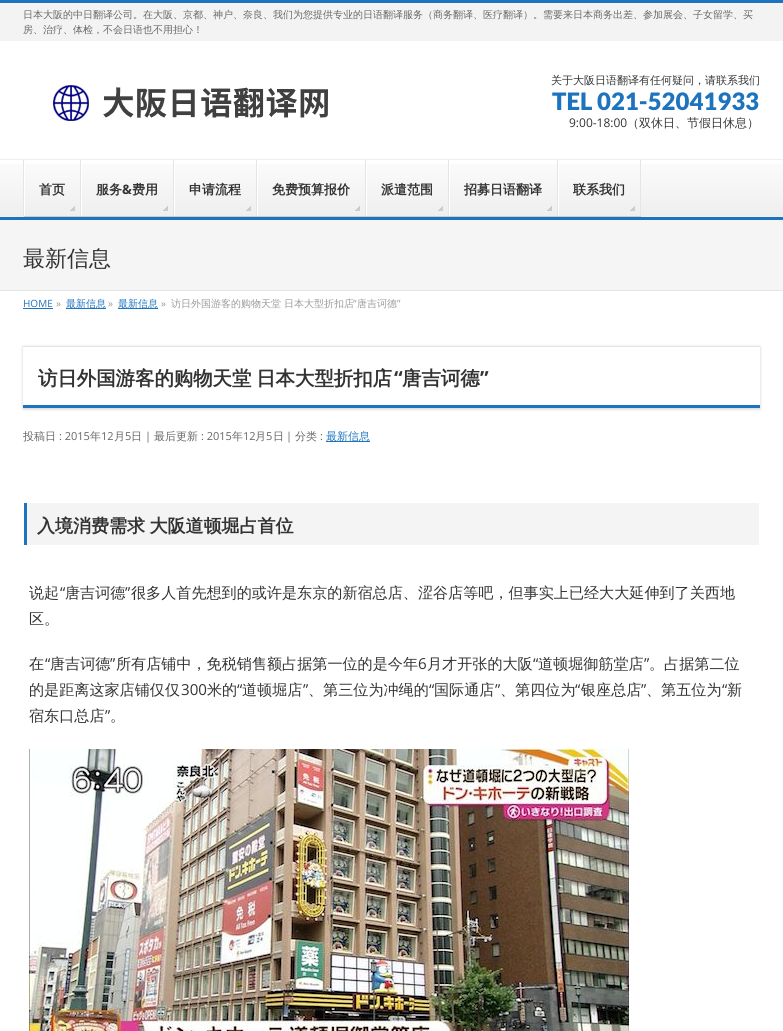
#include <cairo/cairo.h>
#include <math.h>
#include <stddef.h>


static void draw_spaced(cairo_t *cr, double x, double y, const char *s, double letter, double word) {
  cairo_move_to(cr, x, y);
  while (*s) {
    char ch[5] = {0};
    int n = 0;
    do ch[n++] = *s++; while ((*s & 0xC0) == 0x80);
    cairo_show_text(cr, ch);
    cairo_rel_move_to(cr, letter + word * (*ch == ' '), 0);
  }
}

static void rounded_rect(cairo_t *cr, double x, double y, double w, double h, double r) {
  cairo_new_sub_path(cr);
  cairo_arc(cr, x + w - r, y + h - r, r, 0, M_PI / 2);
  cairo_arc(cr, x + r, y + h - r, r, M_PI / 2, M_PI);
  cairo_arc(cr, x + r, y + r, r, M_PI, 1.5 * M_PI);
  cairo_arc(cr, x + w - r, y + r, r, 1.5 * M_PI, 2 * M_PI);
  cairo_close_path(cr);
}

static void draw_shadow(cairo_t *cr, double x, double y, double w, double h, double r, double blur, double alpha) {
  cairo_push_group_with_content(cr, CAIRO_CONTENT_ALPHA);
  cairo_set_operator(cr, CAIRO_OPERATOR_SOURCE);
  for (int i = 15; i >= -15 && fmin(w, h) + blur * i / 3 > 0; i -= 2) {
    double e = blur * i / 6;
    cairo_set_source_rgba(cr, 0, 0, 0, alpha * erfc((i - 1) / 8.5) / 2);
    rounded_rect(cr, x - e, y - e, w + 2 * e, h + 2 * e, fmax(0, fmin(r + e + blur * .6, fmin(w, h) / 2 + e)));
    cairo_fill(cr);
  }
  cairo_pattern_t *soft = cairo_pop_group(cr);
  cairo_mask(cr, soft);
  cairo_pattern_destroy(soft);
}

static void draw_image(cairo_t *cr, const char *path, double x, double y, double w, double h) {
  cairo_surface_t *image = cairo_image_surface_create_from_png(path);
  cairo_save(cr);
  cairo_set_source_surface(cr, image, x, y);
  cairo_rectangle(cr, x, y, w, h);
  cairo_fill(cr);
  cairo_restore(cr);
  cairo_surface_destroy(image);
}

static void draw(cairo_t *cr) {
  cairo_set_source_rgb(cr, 1, 1, 1);
  cairo_paint(cr);
  cairo_set_source_rgb(cr, 243 / 255.0, 243 / 255.0, 243 / 255.0);
  cairo_rectangle(cr, 0, 3, 783, 38);
  cairo_fill(cr);
  cairo_set_source_rgb(cr, 30 / 255.0, 115 / 255.0, 190 / 255.0);
  cairo_rectangle(cr, 0, 0, 783, 3);
  cairo_fill(cr);
  draw_image(cr, "images/1.png", 53, 85, 275, 36);
  draw_image(cr, "images/2.png", 0, 164, 783, 53);
  cairo_set_source_rgb(cr, 238 / 255.0, 238 / 255.0, 238 / 255.0);
  cairo_rectangle(cr, 0, 159, 783, 1);
  cairo_fill(cr);
  cairo_set_source_rgb(cr, 30 / 255.0, 115 / 255.0, 190 / 255.0);
  cairo_rectangle(cr, 0, 217, 783, 3);
  cairo_fill(cr);
  cairo_set_source_rgb(cr, 229 / 255.0, 229 / 255.0, 229 / 255.0);
  cairo_rectangle(cr, 23, 160, 1, 57);
  cairo_fill(cr);
  cairo_set_source_rgb(cr, 1, 1, 1);
  cairo_rectangle(cr, 24, 160, 1, 57);
  cairo_fill(cr);
  draw_image(cr, "images/3.png", 70, 206, 5, 5);
  cairo_set_source_rgb(cr, 229 / 255.0, 229 / 255.0, 229 / 255.0);
  cairo_rectangle(cr, 80, 160, 1, 57);
  cairo_fill(cr);
  cairo_set_source_rgb(cr, 204 / 255.0, 204 / 255.0, 204 / 255.0);
  cairo_rectangle(cr, 24, 216, 57, 1);
  cairo_fill(cr);
  cairo_set_source_rgb(cr, 1, 1, 1);
  cairo_rectangle(cr, 81, 160, 1, 57);
  cairo_fill(cr);
  draw_image(cr, "images/3.png", 163, 206, 5, 5);
  cairo_set_source_rgb(cr, 229 / 255.0, 229 / 255.0, 229 / 255.0);
  cairo_rectangle(cr, 173, 160, 1, 57);
  cairo_fill(cr);
  cairo_set_source_rgb(cr, 204 / 255.0, 204 / 255.0, 204 / 255.0);
  cairo_rectangle(cr, 81, 216, 93, 1);
  cairo_fill(cr);
  cairo_set_source_rgb(cr, 1, 1, 1);
  cairo_rectangle(cr, 174, 160, 1, 57);
  cairo_fill(cr);
  draw_image(cr, "images/3.png", 246, 206, 5, 5);
  cairo_set_source_rgb(cr, 229 / 255.0, 229 / 255.0, 229 / 255.0);
  cairo_rectangle(cr, 256, 160, 1, 57);
  cairo_fill(cr);
  cairo_set_source_rgb(cr, 204 / 255.0, 204 / 255.0, 204 / 255.0);
  cairo_rectangle(cr, 174, 216, 83, 1);
  cairo_fill(cr);
  cairo_set_source_rgb(cr, 1, 1, 1);
  cairo_rectangle(cr, 257, 160, 1, 57);
  cairo_fill(cr);
  draw_image(cr, "images/3.png", 355, 206, 5, 5);
  cairo_set_source_rgb(cr, 229 / 255.0, 229 / 255.0, 229 / 255.0);
  cairo_rectangle(cr, 365, 160, 1, 57);
  cairo_fill(cr);
  cairo_set_source_rgb(cr, 204 / 255.0, 204 / 255.0, 204 / 255.0);
  cairo_rectangle(cr, 257, 216, 109, 1);
  cairo_fill(cr);
  cairo_set_source_rgb(cr, 1, 1, 1);
  cairo_rectangle(cr, 366, 160, 1, 57);
  cairo_fill(cr);
  draw_image(cr, "images/3.png", 438, 206, 5, 5);
  cairo_set_source_rgb(cr, 229 / 255.0, 229 / 255.0, 229 / 255.0);
  cairo_rectangle(cr, 448, 160, 1, 57);
  cairo_fill(cr);
  cairo_set_source_rgb(cr, 204 / 255.0, 204 / 255.0, 204 / 255.0);
  cairo_rectangle(cr, 366, 216, 83, 1);
  cairo_fill(cr);
  cairo_set_source_rgb(cr, 1, 1, 1);
  cairo_rectangle(cr, 449, 160, 1, 57);
  cairo_fill(cr);
  draw_image(cr, "images/3.png", 547, 206, 5, 5);
  cairo_set_source_rgb(cr, 229 / 255.0, 229 / 255.0, 229 / 255.0);
  cairo_rectangle(cr, 557, 160, 1, 57);
  cairo_fill(cr);
  cairo_set_source_rgb(cr, 204 / 255.0, 204 / 255.0, 204 / 255.0);
  cairo_rectangle(cr, 449, 216, 109, 1);
  cairo_fill(cr);
  cairo_set_source_rgb(cr, 1, 1, 1);
  cairo_rectangle(cr, 558, 160, 1, 57);
  cairo_fill(cr);
  draw_image(cr, "images/3.png", 630, 206, 5, 5);
  cairo_set_source_rgb(cr, 229 / 255.0, 229 / 255.0, 229 / 255.0);
  cairo_rectangle(cr, 640, 160, 1, 57);
  cairo_fill(cr);
  cairo_set_source_rgb(cr, 204 / 255.0, 204 / 255.0, 204 / 255.0);
  cairo_rectangle(cr, 558, 216, 83, 1);
  cairo_fill(cr);
  cairo_set_source_rgb(cr, 245 / 255.0, 245 / 255.0, 245 / 255.0);
  cairo_rectangle(cr, 0, 220, 783, 70);
  cairo_fill(cr);
  cairo_set_source_rgb(cr, 229 / 255.0, 229 / 255.0, 229 / 255.0);
  cairo_rectangle(cr, 0, 290, 783, 1);
  cairo_fill(cr);
  cairo_set_source_rgb(cr, 30 / 255.0, 115 / 255.0, 190 / 255.0);
  cairo_rectangle(cr, 23, 308, 30, 1);
  cairo_fill(cr);
  cairo_rectangle(cr, 66, 308, 40, 1);
  cairo_fill(cr);
  cairo_rectangle(cr, 118, 308, 40, 1);
  cairo_fill(cr);
  cairo_save(cr);
  cairo_set_fill_rule(cr, CAIRO_FILL_RULE_EVEN_ODD);
  cairo_new_path(cr);
  cairo_move_to(cr, 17, 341);
  cairo_line_to(cr, 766, 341);
  cairo_line_to(cr, 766, 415);
  cairo_line_to(cr, 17, 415);
  cairo_close_path(cr);
  cairo_move_to(cr, 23, 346);
  cairo_line_to(cr, 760, 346);
  cairo_line_to(cr, 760, 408);
  cairo_line_to(cr, 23, 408);
  cairo_close_path(cr);
  cairo_clip(cr);
  cairo_set_source_rgb(cr, 0, 0, 0);
  draw_shadow(cr, 23, 347, 737, 62, 0, 1.5, 0.2);
  cairo_restore(cr);
  cairo_set_source_rgb(cr, 229 / 255.0, 229 / 255.0, 229 / 255.0);
  cairo_rectangle(cr, 23, 346, 737, 1);
  cairo_fill(cr);
  cairo_set_source_rgb(cr, 30 / 255.0, 115 / 255.0, 190 / 255.0);
  cairo_rectangle(cr, 23, 405, 737, 3);
  cairo_fill(cr);
  cairo_rectangle(cr, 326, 441, 44, 1);
  cairo_fill(cr);
  cairo_set_source_rgb(cr, 244 / 255.0, 244 / 255.0, 244 / 255.0);
  cairo_rectangle(cr, 27, 503, 732, 42);
  cairo_fill(cr);
  cairo_set_source_rgb(cr, 30 / 255.0, 115 / 255.0, 190 / 255.0);
  cairo_rectangle(cr, 24, 503, 3, 42);
  cairo_fill(cr);
  draw_image(cr, "images/4.png", 29, 749, 600, 282);
  cairo_select_font_face(cr, "WenQuanYi Zen Hei Medium", CAIRO_FONT_SLANT_NORMAL, CAIRO_FONT_WEIGHT_NORMAL);
  cairo_set_font_size(cr, 10);
  cairo_set_source_rgb(cr, 102 / 255.0, 102 / 255.0, 102 / 255.0);
  cairo_move_to(cr, 23, 18);
  cairo_show_text(cr, "日本大阪的中日翻译公司。在大阪、京都、神户、奈良、我们为您提供专业的日语翻译服务（商务翻译、医疗翻译）。需要来日本商务出差、参加展会、子女留学、买");
  cairo_move_to(cr, 23, 33);
  cairo_show_text(cr, "房、治疗、体检，不会日语也不用担心！");
  cairo_set_font_size(cr, 11);
  cairo_set_source_rgb(cr, 51 / 255.0, 51 / 255.0, 51 / 255.0);
  cairo_move_to(cr, 551, 84);
  cairo_show_text(cr, "关于大阪日语翻译有任何疑问，请联系我们");
  cairo_select_font_face(cr, "Lato Black", CAIRO_FONT_SLANT_NORMAL, CAIRO_FONT_WEIGHT_NORMAL);
  cairo_set_font_size(cr, 24);
  cairo_set_source_rgb(cr, 30 / 255.0, 115 / 255.0, 190 / 255.0);
  cairo_move_to(cr, 552, 110);
  cairo_show_text(cr, "TEL 021-52041933");
  cairo_select_font_face(cr, "Open Sans", CAIRO_FONT_SLANT_NORMAL, CAIRO_FONT_WEIGHT_NORMAL);
  cairo_set_font_size(cr, 12);
  cairo_set_source_rgb(cr, 51 / 255.0, 51 / 255.0, 51 / 255.0);
  cairo_move_to(cr, 569, 127);
  cairo_show_text(cr, "9:00-18:00");
  cairo_select_font_face(cr, "WenQuanYi Zen Hei Medium", CAIRO_FONT_SLANT_NORMAL, CAIRO_FONT_WEIGHT_NORMAL);
  cairo_move_to(cr, 627, 127);
  cairo_show_text(cr, "（双休日、节假日休息）");
  cairo_select_font_face(cr, "WenQuanYi Zen Hei", CAIRO_FONT_SLANT_NORMAL, CAIRO_FONT_WEIGHT_BOLD);
  cairo_set_font_size(cr, 13);
  cairo_move_to(cr, 39, 194);
  cairo_show_text(cr, "首页");
  cairo_move_to(cr, 96, 194);
  cairo_show_text(cr, "服务");
  cairo_select_font_face(cr, "Open Sans", CAIRO_FONT_SLANT_NORMAL, CAIRO_FONT_WEIGHT_BOLD);
  cairo_move_to(cr, 122, 194);
  cairo_show_text(cr, "&");
  cairo_select_font_face(cr, "WenQuanYi Zen Hei", CAIRO_FONT_SLANT_NORMAL, CAIRO_FONT_WEIGHT_BOLD);
  cairo_move_to(cr, 132, 194);
  cairo_show_text(cr, "费用");
  cairo_move_to(cr, 189, 194);
  cairo_show_text(cr, "申请流程");
  cairo_move_to(cr, 272, 194);
  cairo_show_text(cr, "免费预算报价");
  cairo_move_to(cr, 381, 194);
  cairo_show_text(cr, "派遣范围");
  cairo_move_to(cr, 464, 194);
  cairo_show_text(cr, "招募日语翻译");
  cairo_move_to(cr, 573, 194);
  cairo_show_text(cr, "联系我们");
  cairo_select_font_face(cr, "WenQuanYi Zen Hei Medium", CAIRO_FONT_SLANT_NORMAL, CAIRO_FONT_WEIGHT_NORMAL);
  cairo_set_font_size(cr, 22);
  cairo_move_to(cr, 23, 266);
  cairo_show_text(cr, "最新信息");
  cairo_select_font_face(cr, "Open Sans", CAIRO_FONT_SLANT_NORMAL, CAIRO_FONT_WEIGHT_NORMAL);
  cairo_set_font_size(cr, 10);
  cairo_set_source_rgb(cr, 30 / 255.0, 115 / 255.0, 190 / 255.0);
  cairo_move_to(cr, 23, 307);
  cairo_show_text(cr, "HOME");
  cairo_set_source_rgb(cr, 153 / 255.0, 153 / 255.0, 153 / 255.0);
  cairo_move_to(cr, 56, 307);
  cairo_show_text(cr, "»");
  cairo_select_font_face(cr, "WenQuanYi Zen Hei Medium", CAIRO_FONT_SLANT_NORMAL, CAIRO_FONT_WEIGHT_NORMAL);
  cairo_set_source_rgb(cr, 30 / 255.0, 115 / 255.0, 190 / 255.0);
  cairo_move_to(cr, 66, 307);
  cairo_show_text(cr, "最新信息");
  cairo_select_font_face(cr, "Open Sans", CAIRO_FONT_SLANT_NORMAL, CAIRO_FONT_WEIGHT_NORMAL);
  cairo_set_source_rgb(cr, 153 / 255.0, 153 / 255.0, 153 / 255.0);
  cairo_move_to(cr, 108, 307);
  cairo_show_text(cr, "»");
  cairo_select_font_face(cr, "WenQuanYi Zen Hei Medium", CAIRO_FONT_SLANT_NORMAL, CAIRO_FONT_WEIGHT_NORMAL);
  cairo_set_source_rgb(cr, 30 / 255.0, 115 / 255.0, 190 / 255.0);
  cairo_move_to(cr, 118, 307);
  cairo_show_text(cr, "最新信息");
  cairo_select_font_face(cr, "Open Sans", CAIRO_FONT_SLANT_NORMAL, CAIRO_FONT_WEIGHT_NORMAL);
  cairo_set_source_rgb(cr, 153 / 255.0, 153 / 255.0, 153 / 255.0);
  cairo_move_to(cr, 161, 307);
  cairo_show_text(cr, "»");
  cairo_select_font_face(cr, "WenQuanYi Zen Hei Medium", CAIRO_FONT_SLANT_NORMAL, CAIRO_FONT_WEIGHT_NORMAL);
  cairo_move_to(cr, 171, 307);
  cairo_show_text(cr, "访日外国游客的购物天堂 日本大型折扣店");
  cairo_select_font_face(cr, "Open Sans", CAIRO_FONT_SLANT_NORMAL, CAIRO_FONT_WEIGHT_NORMAL);
  cairo_move_to(cr, 353, 307);
  cairo_show_text(cr, "“");
  cairo_select_font_face(cr, "WenQuanYi Zen Hei Medium", CAIRO_FONT_SLANT_NORMAL, CAIRO_FONT_WEIGHT_NORMAL);
  cairo_move_to(cr, 357, 307);
  cairo_show_text(cr, "唐吉诃德");
  cairo_select_font_face(cr, "Open Sans", CAIRO_FONT_SLANT_NORMAL, CAIRO_FONT_WEIGHT_NORMAL);
  cairo_move_to(cr, 397, 307);
  cairo_show_text(cr, "”");
  cairo_select_font_face(cr, "WenQuanYi Zen Hei", CAIRO_FONT_SLANT_NORMAL, CAIRO_FONT_WEIGHT_BOLD);
  cairo_set_font_size(cr, 19.4);
  cairo_set_source_rgb(cr, 51 / 255.0, 51 / 255.0, 51 / 255.0);
  draw_spaced(cr, 38, 385, "访日外国游客的购物天堂 日本大型折扣店", 0, -1);
  cairo_select_font_face(cr, "Open Sans", CAIRO_FONT_SLANT_NORMAL, CAIRO_FONT_WEIGHT_BOLD);
  cairo_move_to(cr, 394, 385);
  cairo_show_text(cr, "“");
  cairo_select_font_face(cr, "WenQuanYi Zen Hei", CAIRO_FONT_SLANT_NORMAL, CAIRO_FONT_WEIGHT_BOLD);
  cairo_move_to(cr, 402, 385);
  cairo_show_text(cr, "唐吉诃德");
  cairo_select_font_face(cr, "Open Sans", CAIRO_FONT_SLANT_NORMAL, CAIRO_FONT_WEIGHT_BOLD);
  cairo_move_to(cr, 480, 385);
  cairo_show_text(cr, "”");
  cairo_select_font_face(cr, "WenQuanYi Zen Hei Medium", CAIRO_FONT_SLANT_NORMAL, CAIRO_FONT_WEIGHT_NORMAL);
  cairo_set_font_size(cr, 11);
  cairo_set_source_rgb(cr, 102 / 255.0, 102 / 255.0, 102 / 255.0);
  cairo_move_to(cr, 23, 440);
  cairo_show_text(cr, "投稿日");
  cairo_select_font_face(cr, "Open Sans", CAIRO_FONT_SLANT_NORMAL, CAIRO_FONT_WEIGHT_NORMAL);
  cairo_move_to(cr, 59, 440);
  cairo_show_text(cr, ": 2015");
  cairo_select_font_face(cr, "WenQuanYi Zen Hei Medium", CAIRO_FONT_SLANT_NORMAL, CAIRO_FONT_WEIGHT_NORMAL);
  cairo_move_to(cr, 90, 440);
  cairo_show_text(cr, "年");
  cairo_select_font_face(cr, "Open Sans", CAIRO_FONT_SLANT_NORMAL, CAIRO_FONT_WEIGHT_NORMAL);
  cairo_move_to(cr, 101, 440);
  cairo_show_text(cr, "12");
  cairo_select_font_face(cr, "WenQuanYi Zen Hei Medium", CAIRO_FONT_SLANT_NORMAL, CAIRO_FONT_WEIGHT_NORMAL);
  cairo_move_to(cr, 114, 440);
  cairo_show_text(cr, "月");
  cairo_select_font_face(cr, "Open Sans", CAIRO_FONT_SLANT_NORMAL, CAIRO_FONT_WEIGHT_NORMAL);
  cairo_move_to(cr, 125, 440);
  cairo_show_text(cr, "5");
  cairo_select_font_face(cr, "WenQuanYi Zen Hei Medium", CAIRO_FONT_SLANT_NORMAL, CAIRO_FONT_WEIGHT_NORMAL);
  cairo_move_to(cr, 131, 440);
  cairo_show_text(cr, "日");
  cairo_select_font_face(cr, "Open Sans", CAIRO_FONT_SLANT_NORMAL, CAIRO_FONT_WEIGHT_NORMAL);
  cairo_move_to(cr, 145, 440);
  cairo_show_text(cr, "|");
  cairo_select_font_face(cr, "WenQuanYi Zen Hei Medium", CAIRO_FONT_SLANT_NORMAL, CAIRO_FONT_WEIGHT_NORMAL);
  cairo_move_to(cr, 154, 440);
  cairo_show_text(cr, "最后更新");
  cairo_select_font_face(cr, "Open Sans", CAIRO_FONT_SLANT_NORMAL, CAIRO_FONT_WEIGHT_NORMAL);
  cairo_move_to(cr, 201, 440);
  cairo_show_text(cr, ": 2015");
  cairo_select_font_face(cr, "WenQuanYi Zen Hei Medium", CAIRO_FONT_SLANT_NORMAL, CAIRO_FONT_WEIGHT_NORMAL);
  cairo_move_to(cr, 232, 440);
  cairo_show_text(cr, "年");
  cairo_select_font_face(cr, "Open Sans", CAIRO_FONT_SLANT_NORMAL, CAIRO_FONT_WEIGHT_NORMAL);
  cairo_move_to(cr, 243, 440);
  cairo_show_text(cr, "12");
  cairo_select_font_face(cr, "WenQuanYi Zen Hei Medium", CAIRO_FONT_SLANT_NORMAL, CAIRO_FONT_WEIGHT_NORMAL);
  cairo_move_to(cr, 255, 440);
  cairo_show_text(cr, "月");
  cairo_select_font_face(cr, "Open Sans", CAIRO_FONT_SLANT_NORMAL, CAIRO_FONT_WEIGHT_NORMAL);
  cairo_move_to(cr, 266, 440);
  cairo_show_text(cr, "5");
  cairo_select_font_face(cr, "WenQuanYi Zen Hei Medium", CAIRO_FONT_SLANT_NORMAL, CAIRO_FONT_WEIGHT_NORMAL);
  cairo_move_to(cr, 273, 440);
  cairo_show_text(cr, "日");
  cairo_select_font_face(cr, "Open Sans", CAIRO_FONT_SLANT_NORMAL, CAIRO_FONT_WEIGHT_NORMAL);
  cairo_move_to(cr, 286, 440);
  cairo_show_text(cr, "|");
  cairo_select_font_face(cr, "WenQuanYi Zen Hei Medium", CAIRO_FONT_SLANT_NORMAL, CAIRO_FONT_WEIGHT_NORMAL);
  cairo_move_to(cr, 295, 440);
  cairo_show_text(cr, "分类");
  cairo_select_font_face(cr, "Open Sans", CAIRO_FONT_SLANT_NORMAL, CAIRO_FONT_WEIGHT_NORMAL);
  cairo_move_to(cr, 320, 440);
  cairo_show_text(cr, ":");
  cairo_select_font_face(cr, "WenQuanYi Zen Hei Medium", CAIRO_FONT_SLANT_NORMAL, CAIRO_FONT_WEIGHT_NORMAL);
  cairo_set_source_rgb(cr, 30 / 255.0, 115 / 255.0, 190 / 255.0);
  cairo_move_to(cr, 326, 440);
  cairo_show_text(cr, "最新信息");
  cairo_select_font_face(cr, "WenQuanYi Zen Hei", CAIRO_FONT_SLANT_NORMAL, CAIRO_FONT_WEIGHT_BOLD);
  cairo_set_font_size(cr, 18);
  cairo_set_source_rgb(cr, 51 / 255.0, 51 / 255.0, 51 / 255.0);
  draw_spaced(cr, 37, 532, "入境消费需求 大阪道顿堀占首位", 0, -1);
  cairo_select_font_face(cr, "WenQuanYi Zen Hei Medium", CAIRO_FONT_SLANT_NORMAL, CAIRO_FONT_WEIGHT_NORMAL);
  cairo_set_font_size(cr, 15.1);
  cairo_move_to(cr, 29, 598);
  cairo_show_text(cr, "说起");
  cairo_select_font_face(cr, "Open Sans", CAIRO_FONT_SLANT_NORMAL, CAIRO_FONT_WEIGHT_NORMAL);
  cairo_move_to(cr, 60, 598);
  cairo_show_text(cr, "“");
  cairo_select_font_face(cr, "WenQuanYi Zen Hei Medium", CAIRO_FONT_SLANT_NORMAL, CAIRO_FONT_WEIGHT_NORMAL);
  cairo_move_to(cr, 65, 598);
  cairo_show_text(cr, "唐吉诃德");
  cairo_select_font_face(cr, "Open Sans", CAIRO_FONT_SLANT_NORMAL, CAIRO_FONT_WEIGHT_NORMAL);
  cairo_move_to(cr, 125, 598);
  cairo_show_text(cr, "”");
  cairo_select_font_face(cr, "WenQuanYi Zen Hei Medium", CAIRO_FONT_SLANT_NORMAL, CAIRO_FONT_WEIGHT_NORMAL);
  cairo_move_to(cr, 131, 598);
  cairo_show_text(cr, "很多人首先想到的或许是东京的新宿总店、涩谷店等吧，但事实上已经大大延伸到了关西地");
  cairo_move_to(cr, 29, 624);
  cairo_show_text(cr, "区。");
  cairo_move_to(cr, 29, 669);
  cairo_show_text(cr, "在");
  cairo_select_font_face(cr, "Open Sans", CAIRO_FONT_SLANT_NORMAL, CAIRO_FONT_WEIGHT_NORMAL);
  cairo_move_to(cr, 45, 669);
  cairo_show_text(cr, "“");
  cairo_select_font_face(cr, "WenQuanYi Zen Hei Medium", CAIRO_FONT_SLANT_NORMAL, CAIRO_FONT_WEIGHT_NORMAL);
  cairo_move_to(cr, 50, 669);
  cairo_show_text(cr, "唐吉诃德");
  cairo_select_font_face(cr, "Open Sans", CAIRO_FONT_SLANT_NORMAL, CAIRO_FONT_WEIGHT_NORMAL);
  cairo_move_to(cr, 110, 669);
  cairo_show_text(cr, "”");
  cairo_select_font_face(cr, "WenQuanYi Zen Hei Medium", CAIRO_FONT_SLANT_NORMAL, CAIRO_FONT_WEIGHT_NORMAL);
  cairo_move_to(cr, 116, 669);
  cairo_show_text(cr, "所有店铺中，免税销售额占据第一位的是今年");
  cairo_select_font_face(cr, "Open Sans", CAIRO_FONT_SLANT_NORMAL, CAIRO_FONT_WEIGHT_NORMAL);
  cairo_move_to(cr, 418, 669);
  cairo_show_text(cr, "6");
  cairo_select_font_face(cr, "WenQuanYi Zen Hei Medium", CAIRO_FONT_SLANT_NORMAL, CAIRO_FONT_WEIGHT_NORMAL);
  cairo_move_to(cr, 427, 669);
  cairo_show_text(cr, "月才开张的大阪");
  cairo_select_font_face(cr, "Open Sans", CAIRO_FONT_SLANT_NORMAL, CAIRO_FONT_WEIGHT_NORMAL);
  cairo_move_to(cr, 533, 669);
  cairo_show_text(cr, "“");
  cairo_select_font_face(cr, "WenQuanYi Zen Hei Medium", CAIRO_FONT_SLANT_NORMAL, CAIRO_FONT_WEIGHT_NORMAL);
  cairo_move_to(cr, 538, 669);
  cairo_show_text(cr, "道顿堀御筋堂店");
  cairo_select_font_face(cr, "Open Sans", CAIRO_FONT_SLANT_NORMAL, CAIRO_FONT_WEIGHT_NORMAL);
  cairo_move_to(cr, 644, 669);
  cairo_show_text(cr, "”");
  cairo_select_font_face(cr, "WenQuanYi Zen Hei Medium", CAIRO_FONT_SLANT_NORMAL, CAIRO_FONT_WEIGHT_NORMAL);
  cairo_move_to(cr, 649, 669);
  cairo_show_text(cr, "。占据第二位");
  cairo_move_to(cr, 29, 695);
  cairo_show_text(cr, "的是距离这家店铺仅仅");
  cairo_select_font_face(cr, "Open Sans", CAIRO_FONT_SLANT_NORMAL, CAIRO_FONT_WEIGHT_NORMAL);
  cairo_move_to(cr, 181, 695);
  cairo_show_text(cr, "300");
  cairo_select_font_face(cr, "WenQuanYi Zen Hei Medium", CAIRO_FONT_SLANT_NORMAL, CAIRO_FONT_WEIGHT_NORMAL);
  cairo_move_to(cr, 207, 695);
  cairo_show_text(cr, "米的");
  cairo_select_font_face(cr, "Open Sans", CAIRO_FONT_SLANT_NORMAL, CAIRO_FONT_WEIGHT_NORMAL);
  cairo_move_to(cr, 237, 695);
  cairo_show_text(cr, "“");
  cairo_select_font_face(cr, "WenQuanYi Zen Hei Medium", CAIRO_FONT_SLANT_NORMAL, CAIRO_FONT_WEIGHT_NORMAL);
  cairo_move_to(cr, 242, 695);
  cairo_show_text(cr, "道顿堀店");
  cairo_select_font_face(cr, "Open Sans", CAIRO_FONT_SLANT_NORMAL, CAIRO_FONT_WEIGHT_NORMAL);
  cairo_move_to(cr, 303, 695);
  cairo_show_text(cr, "”");
  cairo_select_font_face(cr, "WenQuanYi Zen Hei Medium", CAIRO_FONT_SLANT_NORMAL, CAIRO_FONT_WEIGHT_NORMAL);
  cairo_move_to(cr, 308, 695);
  cairo_show_text(cr, "、第三位为冲绳的");
  cairo_select_font_face(cr, "Open Sans", CAIRO_FONT_SLANT_NORMAL, CAIRO_FONT_WEIGHT_NORMAL);
  cairo_move_to(cr, 429, 695);
  cairo_show_text(cr, "“");
  cairo_select_font_face(cr, "WenQuanYi Zen Hei Medium", CAIRO_FONT_SLANT_NORMAL, CAIRO_FONT_WEIGHT_NORMAL);
  cairo_move_to(cr, 434, 695);
  cairo_show_text(cr, "国际通店");
  cairo_select_font_face(cr, "Open Sans", CAIRO_FONT_SLANT_NORMAL, CAIRO_FONT_WEIGHT_NORMAL);
  cairo_move_to(cr, 495, 695);
  cairo_show_text(cr, "”");
  cairo_select_font_face(cr, "WenQuanYi Zen Hei Medium", CAIRO_FONT_SLANT_NORMAL, CAIRO_FONT_WEIGHT_NORMAL);
  cairo_move_to(cr, 500, 695);
  cairo_show_text(cr, "、第四位为");
  cairo_select_font_face(cr, "Open Sans", CAIRO_FONT_SLANT_NORMAL, CAIRO_FONT_WEIGHT_NORMAL);
  cairo_move_to(cr, 575, 695);
  cairo_show_text(cr, "“");
  cairo_select_font_face(cr, "WenQuanYi Zen Hei Medium", CAIRO_FONT_SLANT_NORMAL, CAIRO_FONT_WEIGHT_NORMAL);
  cairo_move_to(cr, 581, 695);
  cairo_show_text(cr, "银座总店");
  cairo_select_font_face(cr, "Open Sans", CAIRO_FONT_SLANT_NORMAL, CAIRO_FONT_WEIGHT_NORMAL);
  cairo_move_to(cr, 641, 695);
  cairo_show_text(cr, "”");
  cairo_select_font_face(cr, "WenQuanYi Zen Hei Medium", CAIRO_FONT_SLANT_NORMAL, CAIRO_FONT_WEIGHT_NORMAL);
  cairo_move_to(cr, 646, 695);
  cairo_show_text(cr, "、第五位为");
  cairo_select_font_face(cr, "Open Sans", CAIRO_FONT_SLANT_NORMAL, CAIRO_FONT_WEIGHT_NORMAL);
  cairo_move_to(cr, 722, 695);
  cairo_show_text(cr, "“");
  cairo_select_font_face(cr, "WenQuanYi Zen Hei Medium", CAIRO_FONT_SLANT_NORMAL, CAIRO_FONT_WEIGHT_NORMAL);
  cairo_move_to(cr, 727, 695);
  cairo_show_text(cr, "新");
  cairo_move_to(cr, 29, 721);
  cairo_show_text(cr, "宿东口总店");
  cairo_select_font_face(cr, "Open Sans", CAIRO_FONT_SLANT_NORMAL, CAIRO_FONT_WEIGHT_NORMAL);
  cairo_move_to(cr, 105, 721);
  cairo_show_text(cr, "”");
  cairo_select_font_face(cr, "WenQuanYi Zen Hei Medium", CAIRO_FONT_SLANT_NORMAL, CAIRO_FONT_WEIGHT_NORMAL);
  cairo_move_to(cr, 110, 721);
  cairo_show_text(cr, "。");
}

int main(void) {
  cairo_surface_t *surface = cairo_image_surface_create(CAIRO_FORMAT_RGB24, 783, 1031);
  cairo_t *cr = cairo_create(surface);
  cairo_font_options_t *options = cairo_font_options_create();
  cairo_font_options_set_hint_metrics(options, CAIRO_HINT_METRICS_OFF);
  cairo_font_options_set_hint_style(options, CAIRO_HINT_STYLE_NONE);
  cairo_set_font_options(cr, options);
  cairo_set_miter_limit(cr, 4);
  draw(cr);
  cairo_surface_write_to_png(surface, "out.png");
  cairo_font_options_destroy(options);
  cairo_destroy(cr);
  cairo_surface_destroy(surface);
  return 0;
}
